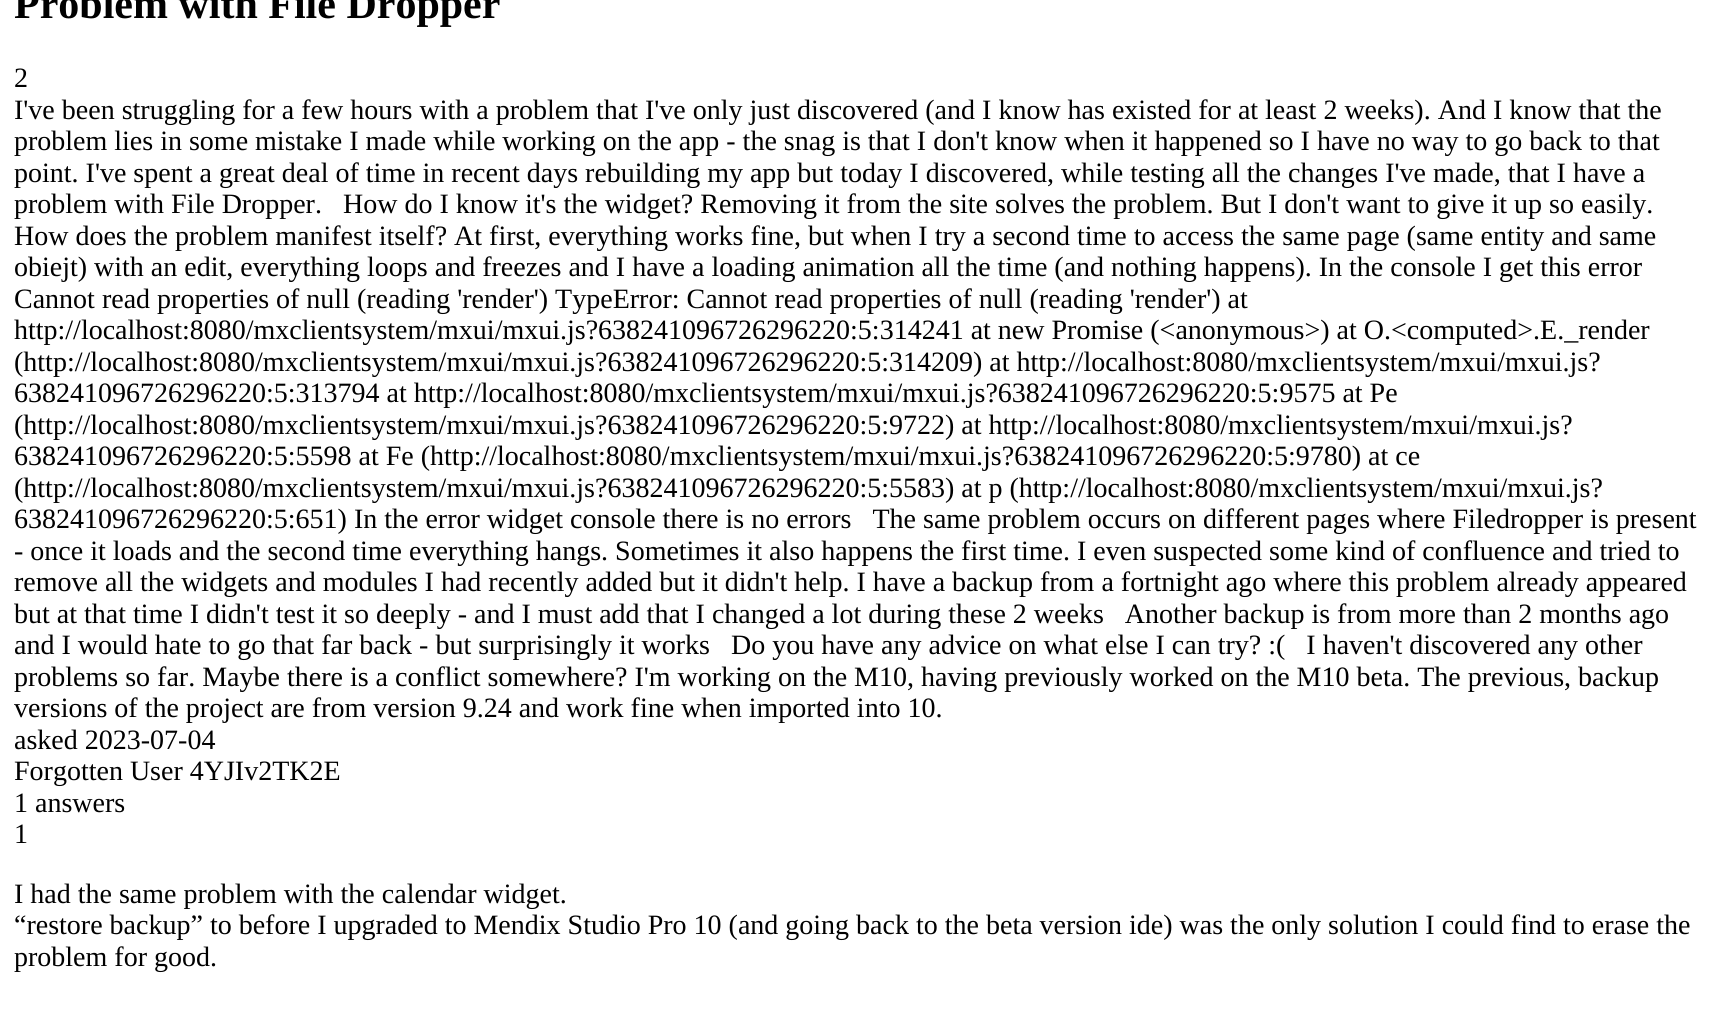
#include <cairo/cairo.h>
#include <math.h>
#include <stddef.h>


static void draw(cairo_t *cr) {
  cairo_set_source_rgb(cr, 1, 1, 1);
  cairo_paint(cr);
  cairo_select_font_face(cr, "Liberation Serif", CAIRO_FONT_SLANT_NORMAL, CAIRO_FONT_WEIGHT_BOLD);
  cairo_set_font_size(cr, 42);
  cairo_set_source_rgb(cr, 0, 0, 0);
  cairo_move_to(cr, 14, 18);
  cairo_show_text(cr, "Problem with File Dropper");
  cairo_select_font_face(cr, "Liberation Serif", CAIRO_FONT_SLANT_NORMAL, CAIRO_FONT_WEIGHT_NORMAL);
  cairo_set_font_size(cr, 28);
  cairo_move_to(cr, 14, 87);
  cairo_show_text(cr, "2");
  cairo_move_to(cr, 14, 119);
  cairo_show_text(cr, "I've been struggling for a few hours with a problem that I've only just discovered (and I know has existed for at least 2 weeks). And I know that the");
  cairo_move_to(cr, 14, 150);
  cairo_show_text(cr, "problem lies in some mistake I made while working on the app - the snag is that I don't know when it happened so I have no way to go back to that");
  cairo_move_to(cr, 14, 182);
  cairo_show_text(cr, "point. I've spent a great deal of time in recent days rebuilding my app but today I discovered, while testing all the changes I've made, that I have a");
  cairo_move_to(cr, 14, 213);
  cairo_show_text(cr, "problem with File Dropper.   How do I know it's the widget? Removing it from the site solves the problem. But I don't want to give it up so easily.");
  cairo_move_to(cr, 14, 245);
  cairo_show_text(cr, "How does the problem manifest itself? At first, everything works fine, but when I try a second time to access the same page (same entity and same");
  cairo_move_to(cr, 14, 276);
  cairo_show_text(cr, "obiejt) with an edit, everything loops and freezes and I have a loading animation all the time (and nothing happens). In the console I get this error");
  cairo_move_to(cr, 14, 308);
  cairo_show_text(cr, "Cannot read properties of null (reading 'render') TypeError: Cannot read properties of null (reading 'render') at");
  cairo_move_to(cr, 14, 339);
  cairo_show_text(cr, "http://localhost:8080/mxclientsystem/mxui/mxui.js?638241096726296220:5:314241 at new Promise (<anonymous>) at O.<computed>.E._render");
  cairo_move_to(cr, 14, 371);
  cairo_show_text(cr, "(http://localhost:8080/mxclientsystem/mxui/mxui.js?638241096726296220:5:314209) at http://localhost:8080/mxclientsystem/mxui/mxui.js?");
  cairo_move_to(cr, 14, 402);
  cairo_show_text(cr, "638241096726296220:5:313794 at http://localhost:8080/mxclientsystem/mxui/mxui.js?638241096726296220:5:9575 at Pe");
  cairo_move_to(cr, 14, 434);
  cairo_show_text(cr, "(http://localhost:8080/mxclientsystem/mxui/mxui.js?638241096726296220:5:9722) at http://localhost:8080/mxclientsystem/mxui/mxui.js?");
  cairo_move_to(cr, 14, 465);
  cairo_show_text(cr, "638241096726296220:5:5598 at Fe (http://localhost:8080/mxclientsystem/mxui/mxui.js?638241096726296220:5:9780) at ce");
  cairo_move_to(cr, 14, 497);
  cairo_show_text(cr, "(http://localhost:8080/mxclientsystem/mxui/mxui.js?638241096726296220:5:5583) at p (http://localhost:8080/mxclientsystem/mxui/mxui.js?");
  cairo_move_to(cr, 14, 528);
  cairo_show_text(cr, "638241096726296220:5:651) In the error widget console there is no errors   The same problem occurs on different pages where Filedropper is present");
  cairo_move_to(cr, 14, 560);
  cairo_show_text(cr, "- once it loads and the second time everything hangs. Sometimes it also happens the first time. I even suspected some kind of confluence and tried to");
  cairo_move_to(cr, 14, 591);
  cairo_show_text(cr, "remove all the widgets and modules I had recently added but it didn't help. I have a backup from a fortnight ago where this problem already appeared");
  cairo_move_to(cr, 14, 623);
  cairo_show_text(cr, "but at that time I didn't test it so deeply - and I must add that I changed a lot during these 2 weeks   Another backup is from more than 2 months ago");
  cairo_move_to(cr, 14, 654);
  cairo_show_text(cr, "and I would hate to go that far back - but surprisingly it works   Do you have any advice on what else I can try? :(   I haven't discovered any other");
  cairo_move_to(cr, 14, 686);
  cairo_show_text(cr, "problems so far. Maybe there is a conflict somewhere? I'm working on the M10, having previously worked on the M10 beta. The previous, backup");
  cairo_move_to(cr, 14, 717);
  cairo_show_text(cr, "versions of the project are from version 9.24 and work fine when imported into 10.");
  cairo_move_to(cr, 14, 749);
  cairo_show_text(cr, "asked 2023-07-04");
  cairo_move_to(cr, 14, 780);
  cairo_show_text(cr, "Forgotten User 4YJIv2TK2E");
  cairo_move_to(cr, 14, 812);
  cairo_show_text(cr, "1 answers");
  cairo_move_to(cr, 14, 843);
  cairo_show_text(cr, "1");
  cairo_move_to(cr, 14, 903);
  cairo_show_text(cr, "I had the same problem with the calendar widget.");
  cairo_move_to(cr, 14, 934);
  cairo_show_text(cr, "“restore backup” to before I upgraded to Mendix Studio Pro 10 (and going back to the beta version ide) was the only solution I could find to erase the");
  cairo_move_to(cr, 14, 966);
  cairo_show_text(cr, "problem for good.");
}

int main(void) {
  cairo_surface_t *surface = cairo_image_surface_create(CAIRO_FORMAT_RGB24, 1712, 1016);
  cairo_t *cr = cairo_create(surface);
  cairo_font_options_t *options = cairo_font_options_create();
  cairo_font_options_set_hint_metrics(options, CAIRO_HINT_METRICS_OFF);
  cairo_font_options_set_hint_style(options, CAIRO_HINT_STYLE_NONE);
  cairo_set_font_options(cr, options);
  cairo_set_miter_limit(cr, 4);
  draw(cr);
  cairo_surface_write_to_png(surface, "out.png");
  cairo_font_options_destroy(options);
  cairo_destroy(cr);
  cairo_surface_destroy(surface);
  return 0;
}
